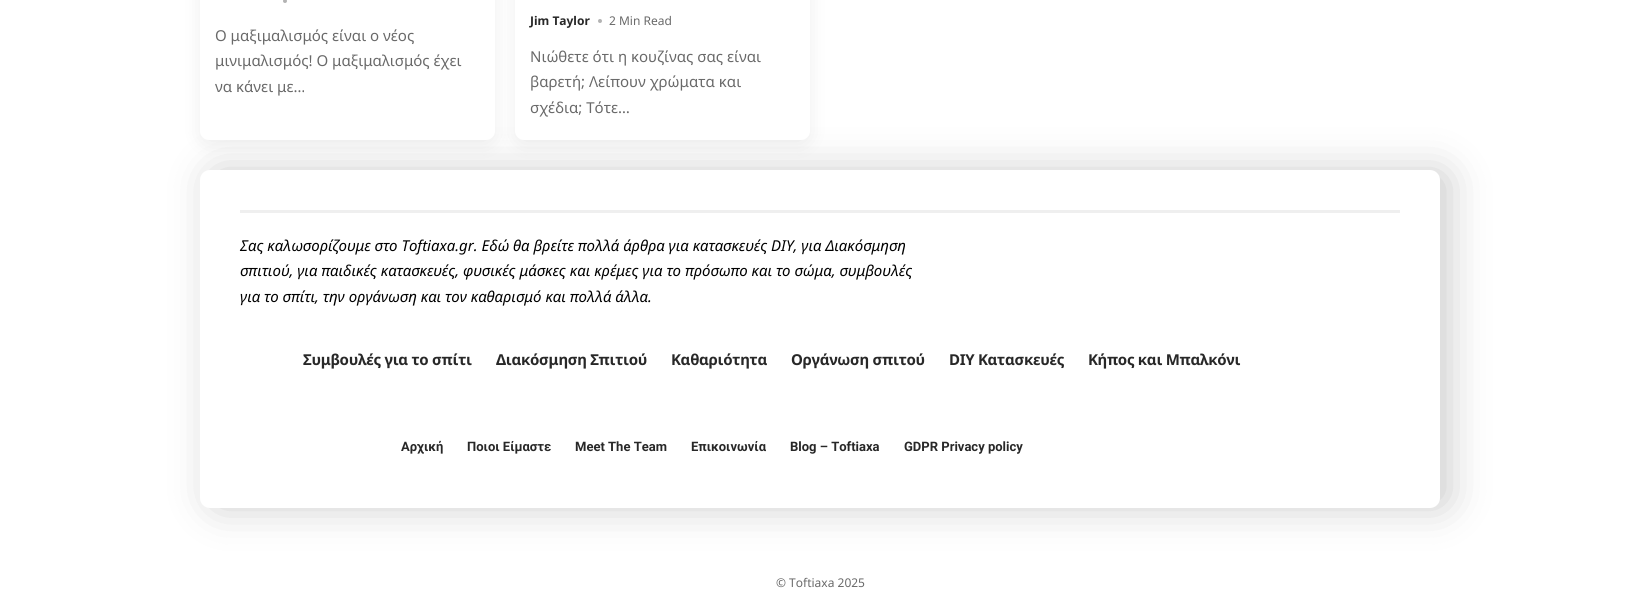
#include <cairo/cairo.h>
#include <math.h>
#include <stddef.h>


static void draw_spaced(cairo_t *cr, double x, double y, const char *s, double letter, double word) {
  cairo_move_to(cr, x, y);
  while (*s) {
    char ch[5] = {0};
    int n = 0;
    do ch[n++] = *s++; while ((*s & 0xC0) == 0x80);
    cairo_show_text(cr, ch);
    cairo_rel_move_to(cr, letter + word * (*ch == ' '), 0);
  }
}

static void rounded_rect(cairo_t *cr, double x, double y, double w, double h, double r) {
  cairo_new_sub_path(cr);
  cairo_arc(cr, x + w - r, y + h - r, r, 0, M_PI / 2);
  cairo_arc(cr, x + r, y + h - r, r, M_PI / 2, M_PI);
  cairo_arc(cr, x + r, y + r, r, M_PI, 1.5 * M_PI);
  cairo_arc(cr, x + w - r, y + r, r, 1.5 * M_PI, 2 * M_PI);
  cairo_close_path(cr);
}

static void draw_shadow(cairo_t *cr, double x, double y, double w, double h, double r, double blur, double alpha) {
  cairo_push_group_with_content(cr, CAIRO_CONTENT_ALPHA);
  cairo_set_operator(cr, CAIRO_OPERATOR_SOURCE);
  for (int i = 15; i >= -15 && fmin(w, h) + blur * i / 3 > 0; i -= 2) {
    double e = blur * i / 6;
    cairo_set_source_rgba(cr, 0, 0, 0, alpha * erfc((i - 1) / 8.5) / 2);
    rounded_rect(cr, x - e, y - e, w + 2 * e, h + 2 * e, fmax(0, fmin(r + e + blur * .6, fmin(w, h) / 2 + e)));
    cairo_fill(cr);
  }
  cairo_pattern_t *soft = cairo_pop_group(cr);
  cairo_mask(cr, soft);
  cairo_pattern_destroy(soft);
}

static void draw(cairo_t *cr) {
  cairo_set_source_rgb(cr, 1, 1, 1);
  cairo_paint(cr);
  cairo_set_source_rgb(cr, 0, 0, 0);
  draw_shadow(cr, 210, 170, 1240, 338, 10, 20, 0.2);
  cairo_set_source_rgb(cr, 1, 1, 1);
  rounded_rect(cr, 200, 170, 1240, 338, 10);
  cairo_fill(cr);
  cairo_set_source_rgb(cr, 0, 0, 0);
  draw_shadow(cr, 200, -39, 295, 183, 9, 10, 0.07);
  cairo_set_source_rgb(cr, 1, 1, 1);
  rounded_rect(cr, 200, -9, 295, 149, 9);
  cairo_fill(cr);
  cairo_set_source_rgb(cr, 179 / 255.0, 179 / 255.0, 179 / 255.0);
  cairo_arc(cr, 285, 1, 2, 0, 2 * M_PI);
  cairo_fill(cr);
  cairo_set_source_rgb(cr, 0, 0, 0);
  draw_shadow(cr, 515, -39, 295, 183, 9, 10, 0.07);
  cairo_set_source_rgb(cr, 1, 1, 1);
  rounded_rect(cr, 515, -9, 295, 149, 9);
  cairo_fill(cr);
  cairo_set_source_rgb(cr, 179 / 255.0, 179 / 255.0, 179 / 255.0);
  cairo_arc(cr, 600, 21, 2, 0, 2 * M_PI);
  cairo_fill(cr);
  cairo_set_source_rgb(cr, 239 / 255.0, 239 / 255.0, 239 / 255.0);
  cairo_rectangle(cr, 240, 210, 1160, 3);
  cairo_fill(cr);
  cairo_select_font_face(cr, "Noto Sans", CAIRO_FONT_SLANT_NORMAL, CAIRO_FONT_WEIGHT_NORMAL);
  cairo_set_font_size(cr, 15);
  cairo_set_source_rgb(cr, 105 / 255.0, 105 / 255.0, 105 / 255.0);
  cairo_move_to(cr, 215, 41);
  cairo_show_text(cr, "Ο μαξιμαλισμός είναι ο νέος");
  cairo_move_to(cr, 215, 66);
  cairo_show_text(cr, "μινιμαλισμός! Ο μαξιμαλισμός έχει");
  cairo_move_to(cr, 215, 92);
  cairo_show_text(cr, "να κάνει με…");
  cairo_select_font_face(cr, "Noto Sans", CAIRO_FONT_SLANT_NORMAL, CAIRO_FONT_WEIGHT_BOLD);
  cairo_set_font_size(cr, 12);
  cairo_set_source_rgb(cr, 40 / 255.0, 40 / 255.0, 40 / 255.0);
  cairo_move_to(cr, 530, 25);
  cairo_show_text(cr, "Jim Taylor");
  cairo_select_font_face(cr, "Noto Sans", CAIRO_FONT_SLANT_NORMAL, CAIRO_FONT_WEIGHT_NORMAL);
  cairo_set_source_rgb(cr, 105 / 255.0, 105 / 255.0, 105 / 255.0);
  cairo_move_to(cr, 609, 25);
  cairo_show_text(cr, "2 Min Read");
  cairo_set_font_size(cr, 15);
  cairo_move_to(cr, 530, 62);
  cairo_show_text(cr, "Νιώθετε ότι η κουζίνας σας είναι");
  cairo_move_to(cr, 530, 87);
  cairo_show_text(cr, "βαρετή; Λείπουν χρώματα και");
  cairo_move_to(cr, 530, 113);
  cairo_show_text(cr, "σχέδια; Τότε…");
  cairo_select_font_face(cr, "Noto Sans", CAIRO_FONT_SLANT_ITALIC, CAIRO_FONT_WEIGHT_NORMAL);
  cairo_set_source_rgb(cr, 0, 0, 0);
  cairo_move_to(cr, 240, 251);
  cairo_show_text(cr, "Σας καλωσορίζουμε στο Toftiaxa.gr. Εδώ θα βρείτε πολλά άρθρα για κατασκευές DIY, για Διακόσμηση");
  cairo_move_to(cr, 240, 276);
  cairo_show_text(cr, "σπιτιού, για παιδικές κατασκευές, φυσικές μάσκες και κρέμες για το πρόσωπο και το σώμα, συμβουλές");
  cairo_move_to(cr, 240, 302);
  cairo_show_text(cr, "για το σπίτι, την οργάνωση και τον καθαρισμό και πολλά άλλα.");
  cairo_select_font_face(cr, "Noto Sans", CAIRO_FONT_SLANT_NORMAL, CAIRO_FONT_WEIGHT_BOLD);
  cairo_set_source_rgb(cr, 40 / 255.0, 40 / 255.0, 40 / 255.0);
  draw_spaced(cr, 303, 365, "Συμβουλές για το σπίτι", -0.3, 0);
  draw_spaced(cr, 496, 365, "Διακόσμηση Σπιτιού", -0.3, 0);
  draw_spaced(cr, 671, 365, "Καθαριότητα", -0.3, 0);
  draw_spaced(cr, 791, 365, "Οργάνωση σπιτού", -0.3, 0);
  draw_spaced(cr, 949, 365, "DIY Κατασκευές", -0.3, 0);
  draw_spaced(cr, 1088, 365, "Κήπος και Μπαλκόνι", -0.3, 0);
  cairo_select_font_face(cr, "Roboto", CAIRO_FONT_SLANT_NORMAL, CAIRO_FONT_WEIGHT_BOLD);
  cairo_set_font_size(cr, 13);
  cairo_move_to(cr, 401, 451);
  cairo_show_text(cr, "Αρχική");
  cairo_move_to(cr, 467, 451);
  cairo_show_text(cr, "Ποιοι Είμαστε");
  cairo_move_to(cr, 575, 451);
  cairo_show_text(cr, "Meet The Team");
  cairo_move_to(cr, 691, 451);
  cairo_show_text(cr, "Επικοινωνία");
  cairo_move_to(cr, 790, 451);
  cairo_show_text(cr, "Blog – Toftiaxa");
  cairo_move_to(cr, 904, 451);
  cairo_show_text(cr, "GDPR Privacy policy");
  cairo_select_font_face(cr, "Noto Sans", CAIRO_FONT_SLANT_NORMAL, CAIRO_FONT_WEIGHT_NORMAL);
  cairo_set_font_size(cr, 12);
  cairo_set_source_rgb(cr, 105 / 255.0, 105 / 255.0, 105 / 255.0);
  cairo_move_to(cr, 776, 587);
  cairo_show_text(cr, "© Toftiaxa 2025");
}

int main(void) {
  cairo_surface_t *surface = cairo_image_surface_create(CAIRO_FORMAT_RGB24, 1640, 608);
  cairo_t *cr = cairo_create(surface);
  cairo_font_options_t *options = cairo_font_options_create();
  cairo_font_options_set_hint_metrics(options, CAIRO_HINT_METRICS_OFF);
  cairo_font_options_set_hint_style(options, CAIRO_HINT_STYLE_NONE);
  cairo_set_font_options(cr, options);
  cairo_set_miter_limit(cr, 4);
  draw(cr);
  cairo_surface_write_to_png(surface, "out.png");
  cairo_font_options_destroy(options);
  cairo_destroy(cr);
  cairo_surface_destroy(surface);
  return 0;
}
